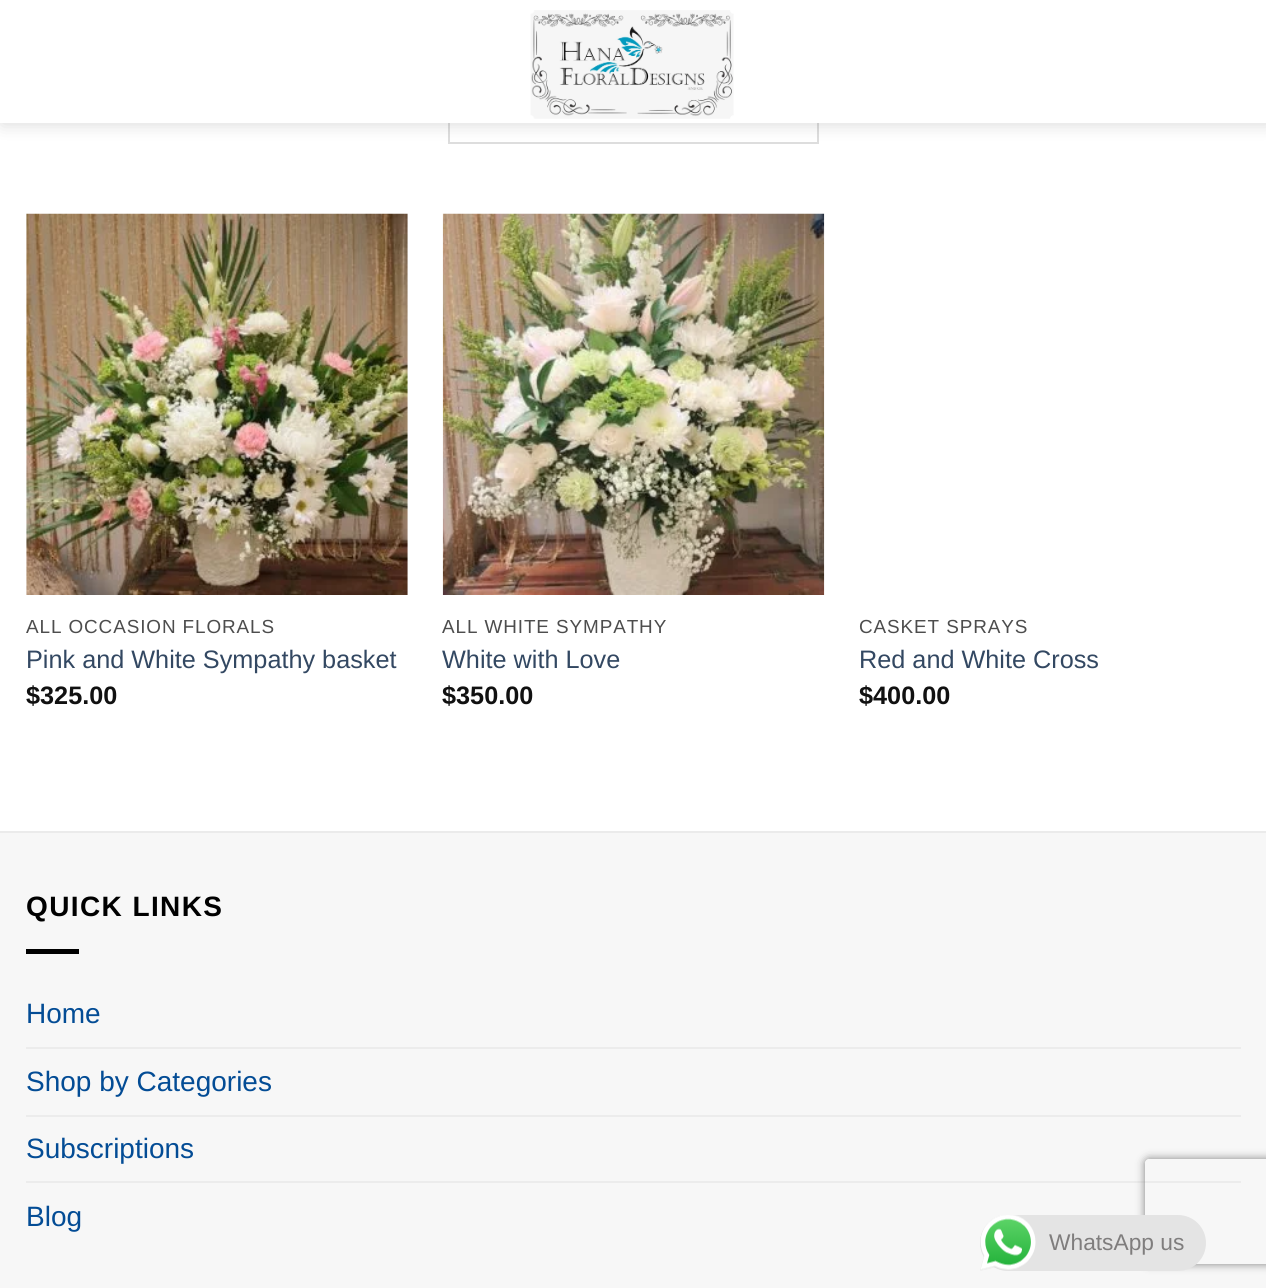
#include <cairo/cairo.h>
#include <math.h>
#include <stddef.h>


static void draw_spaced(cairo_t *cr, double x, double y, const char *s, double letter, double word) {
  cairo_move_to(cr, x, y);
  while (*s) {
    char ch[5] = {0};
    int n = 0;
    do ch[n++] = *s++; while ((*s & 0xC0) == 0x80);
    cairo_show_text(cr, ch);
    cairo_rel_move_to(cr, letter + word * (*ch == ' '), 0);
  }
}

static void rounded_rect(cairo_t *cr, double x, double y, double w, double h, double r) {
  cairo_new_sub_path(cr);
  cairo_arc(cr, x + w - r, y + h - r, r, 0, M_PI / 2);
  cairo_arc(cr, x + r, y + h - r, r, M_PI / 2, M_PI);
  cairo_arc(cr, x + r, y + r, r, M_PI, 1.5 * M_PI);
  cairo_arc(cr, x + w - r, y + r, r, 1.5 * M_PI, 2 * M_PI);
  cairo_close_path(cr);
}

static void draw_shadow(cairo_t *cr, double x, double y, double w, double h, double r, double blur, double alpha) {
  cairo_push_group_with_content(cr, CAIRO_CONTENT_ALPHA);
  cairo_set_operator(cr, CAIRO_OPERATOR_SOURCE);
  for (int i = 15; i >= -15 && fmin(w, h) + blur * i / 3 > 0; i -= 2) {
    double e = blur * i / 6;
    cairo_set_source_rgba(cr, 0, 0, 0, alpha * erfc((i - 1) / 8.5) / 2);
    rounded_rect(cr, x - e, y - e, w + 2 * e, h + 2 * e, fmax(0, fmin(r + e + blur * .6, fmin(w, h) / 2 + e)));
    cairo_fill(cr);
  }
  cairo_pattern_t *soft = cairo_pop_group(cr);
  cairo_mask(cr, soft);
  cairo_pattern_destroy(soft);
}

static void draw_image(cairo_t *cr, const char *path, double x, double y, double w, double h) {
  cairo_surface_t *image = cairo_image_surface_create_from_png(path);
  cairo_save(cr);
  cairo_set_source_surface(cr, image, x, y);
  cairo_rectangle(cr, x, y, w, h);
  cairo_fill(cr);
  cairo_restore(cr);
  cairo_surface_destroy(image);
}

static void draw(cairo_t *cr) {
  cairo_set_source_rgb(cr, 1, 1, 1);
  cairo_paint(cr);
  cairo_rectangle(cr, 449, 75, 369, 68);
  cairo_set_source_rgb(cr, 221 / 255.0, 221 / 255.0, 221 / 255.0);
  cairo_stroke(cr);
  cairo_set_source_rgb(cr, 0, 0, 0);
  draw_shadow(cr, 2, 2, 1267, 122, 0, 9, 0.15);
  cairo_set_source_rgb(cr, 1, 1, 1);
  cairo_rectangle(cr, 0, 0, 1266, 123);
  cairo_fill(cr);
  draw_image(cr, "images/1.png", 530, 10, 204, 109);
  draw_image(cr, "images/2.png", 26, 213, 382, 382);
  draw_image(cr, "images/3.png", 442, 213, 383, 382);
  cairo_set_source_rgb(cr, 247 / 255.0, 247 / 255.0, 247 / 255.0);
  cairo_rectangle(cr, 0, 833, 1266, 455);
  cairo_fill(cr);
  cairo_set_source_rgb(cr, 235 / 255.0, 235 / 255.0, 235 / 255.0);
  cairo_rectangle(cr, 0, 831, 1266, 2);
  cairo_fill(cr);
  cairo_set_source_rgb(cr, 0, 0, 0);
  cairo_rectangle(cr, 26, 949, 53, 5);
  cairo_fill(cr);
  cairo_set_source_rgb(cr, 236 / 255.0, 236 / 255.0, 236 / 255.0);
  cairo_rectangle(cr, 26, 1047, 1215, 2);
  cairo_fill(cr);
  cairo_rectangle(cr, 26, 1115, 1215, 2);
  cairo_fill(cr);
  cairo_rectangle(cr, 26, 1181, 1215, 2);
  cairo_fill(cr);
  cairo_save(cr);
  cairo_set_fill_rule(cr, CAIRO_FILL_RULE_EVEN_ODD);
  cairo_new_path(cr);
  cairo_move_to(cr, 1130, 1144);
  cairo_line_to(cr, 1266, 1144);
  cairo_line_to(cr, 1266, 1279);
  cairo_line_to(cr, 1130, 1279);
  cairo_close_path(cr);
  cairo_move_to(cr, 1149, 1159);
  cairo_line_to(cr, 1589, 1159);
  cairo_curve_to(cr, 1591, 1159, 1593, 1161, 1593, 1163);
  cairo_line_to(cr, 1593, 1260);
  cairo_curve_to(cr, 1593, 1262, 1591, 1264, 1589, 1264);
  cairo_line_to(cr, 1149, 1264);
  cairo_curve_to(cr, 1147, 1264, 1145, 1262, 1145, 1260);
  cairo_line_to(cr, 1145, 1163);
  cairo_curve_to(cr, 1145, 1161, 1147, 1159, 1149, 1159);
  cairo_close_path(cr);
  cairo_clip(cr);
  cairo_set_source_rgb(cr, 128 / 255.0, 128 / 255.0, 128 / 255.0);
  draw_shadow(cr, 1145, 1159, 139, 105, 4, 4.5, 1);
  cairo_restore(cr);
  cairo_set_source_rgb(cr, 228 / 255.0, 228 / 255.0, 228 / 255.0);
  rounded_rect(cr, 980, 1215, 226, 56, 28);
  cairo_fill(cr);
  draw_image(cr, "images/4.png", 980, 1215, 56, 56);
  cairo_select_font_face(cr, "Liberation Sans", CAIRO_FONT_SLANT_NORMAL, CAIRO_FONT_WEIGHT_NORMAL);
  cairo_set_font_size(cr, 18.9);
  cairo_set_source_rgb(cr, 77 / 255.0, 77 / 255.0, 77 / 255.0);
  draw_spaced(cr, 26, 633, "ALL OCCASION FLORALS", 0.9, 0);
  cairo_set_font_size(cr, 25.25);
  cairo_set_source_rgb(cr, 51 / 255.0, 72 / 255.0, 98 / 255.0);
  cairo_move_to(cr, 26, 668);
  cairo_show_text(cr, "Pink and White Sympathy basket");
  cairo_select_font_face(cr, "Liberation Sans", CAIRO_FONT_SLANT_NORMAL, CAIRO_FONT_WEIGHT_BOLD);
  cairo_set_source_rgb(cr, 17 / 255.0, 17 / 255.0, 17 / 255.0);
  cairo_move_to(cr, 26, 704);
  cairo_show_text(cr, "$325.00");
  cairo_select_font_face(cr, "Liberation Sans", CAIRO_FONT_SLANT_NORMAL, CAIRO_FONT_WEIGHT_NORMAL);
  cairo_set_font_size(cr, 18.9);
  cairo_set_source_rgb(cr, 77 / 255.0, 77 / 255.0, 77 / 255.0);
  draw_spaced(cr, 442, 633, "ALL WHITE SYMPATHY", 0.9, 0);
  cairo_set_font_size(cr, 25.25);
  cairo_set_source_rgb(cr, 51 / 255.0, 72 / 255.0, 98 / 255.0);
  cairo_move_to(cr, 442, 668);
  cairo_show_text(cr, "White with Love");
  cairo_select_font_face(cr, "Liberation Sans", CAIRO_FONT_SLANT_NORMAL, CAIRO_FONT_WEIGHT_BOLD);
  cairo_set_source_rgb(cr, 17 / 255.0, 17 / 255.0, 17 / 255.0);
  cairo_move_to(cr, 442, 704);
  cairo_show_text(cr, "$350.00");
  cairo_select_font_face(cr, "Liberation Sans", CAIRO_FONT_SLANT_NORMAL, CAIRO_FONT_WEIGHT_NORMAL);
  cairo_set_font_size(cr, 18.9);
  cairo_set_source_rgb(cr, 77 / 255.0, 77 / 255.0, 77 / 255.0);
  draw_spaced(cr, 859, 633, "CASKET SPRAYS", 0.9, 0);
  cairo_set_font_size(cr, 25.25);
  cairo_set_source_rgb(cr, 51 / 255.0, 72 / 255.0, 98 / 255.0);
  cairo_move_to(cr, 859, 668);
  cairo_show_text(cr, "Red and White Cross");
  cairo_select_font_face(cr, "Liberation Sans", CAIRO_FONT_SLANT_NORMAL, CAIRO_FONT_WEIGHT_BOLD);
  cairo_set_source_rgb(cr, 17 / 255.0, 17 / 255.0, 17 / 255.0);
  cairo_move_to(cr, 859, 704);
  cairo_show_text(cr, "$400.00");
  cairo_set_font_size(cr, 28);
  cairo_set_source_rgb(cr, 0, 0, 0);
  draw_spaced(cr, 26, 916, "QUICK LINKS", 1.4, 0);
  cairo_select_font_face(cr, "Liberation Sans", CAIRO_FONT_SLANT_NORMAL, CAIRO_FONT_WEIGHT_NORMAL);
  cairo_set_source_rgb(cr, 3 / 255.0, 76 / 255.0, 149 / 255.0);
  cairo_move_to(cr, 26, 1023);
  cairo_show_text(cr, "Home");
  cairo_move_to(cr, 26, 1091);
  cairo_show_text(cr, "Shop by Categories");
  cairo_move_to(cr, 26, 1158);
  cairo_show_text(cr, "Subscriptions");
  cairo_move_to(cr, 26, 1226);
  cairo_show_text(cr, "Blog");
  cairo_set_font_size(cr, 22.75);
  cairo_set_source_rgb(cr, 127 / 255.0, 125 / 255.0, 125 / 255.0);
  cairo_move_to(cr, 1049, 1250);
  cairo_show_text(cr, "WhatsApp us");
}

int main(void) {
  cairo_surface_t *surface = cairo_image_surface_create(CAIRO_FORMAT_RGB24, 1266, 1288);
  cairo_t *cr = cairo_create(surface);
  cairo_font_options_t *options = cairo_font_options_create();
  cairo_font_options_set_hint_metrics(options, CAIRO_HINT_METRICS_OFF);
  cairo_font_options_set_hint_style(options, CAIRO_HINT_STYLE_NONE);
  cairo_set_font_options(cr, options);
  cairo_set_miter_limit(cr, 4);
  draw(cr);
  cairo_surface_write_to_png(surface, "out.png");
  cairo_font_options_destroy(options);
  cairo_destroy(cr);
  cairo_surface_destroy(surface);
  return 0;
}
